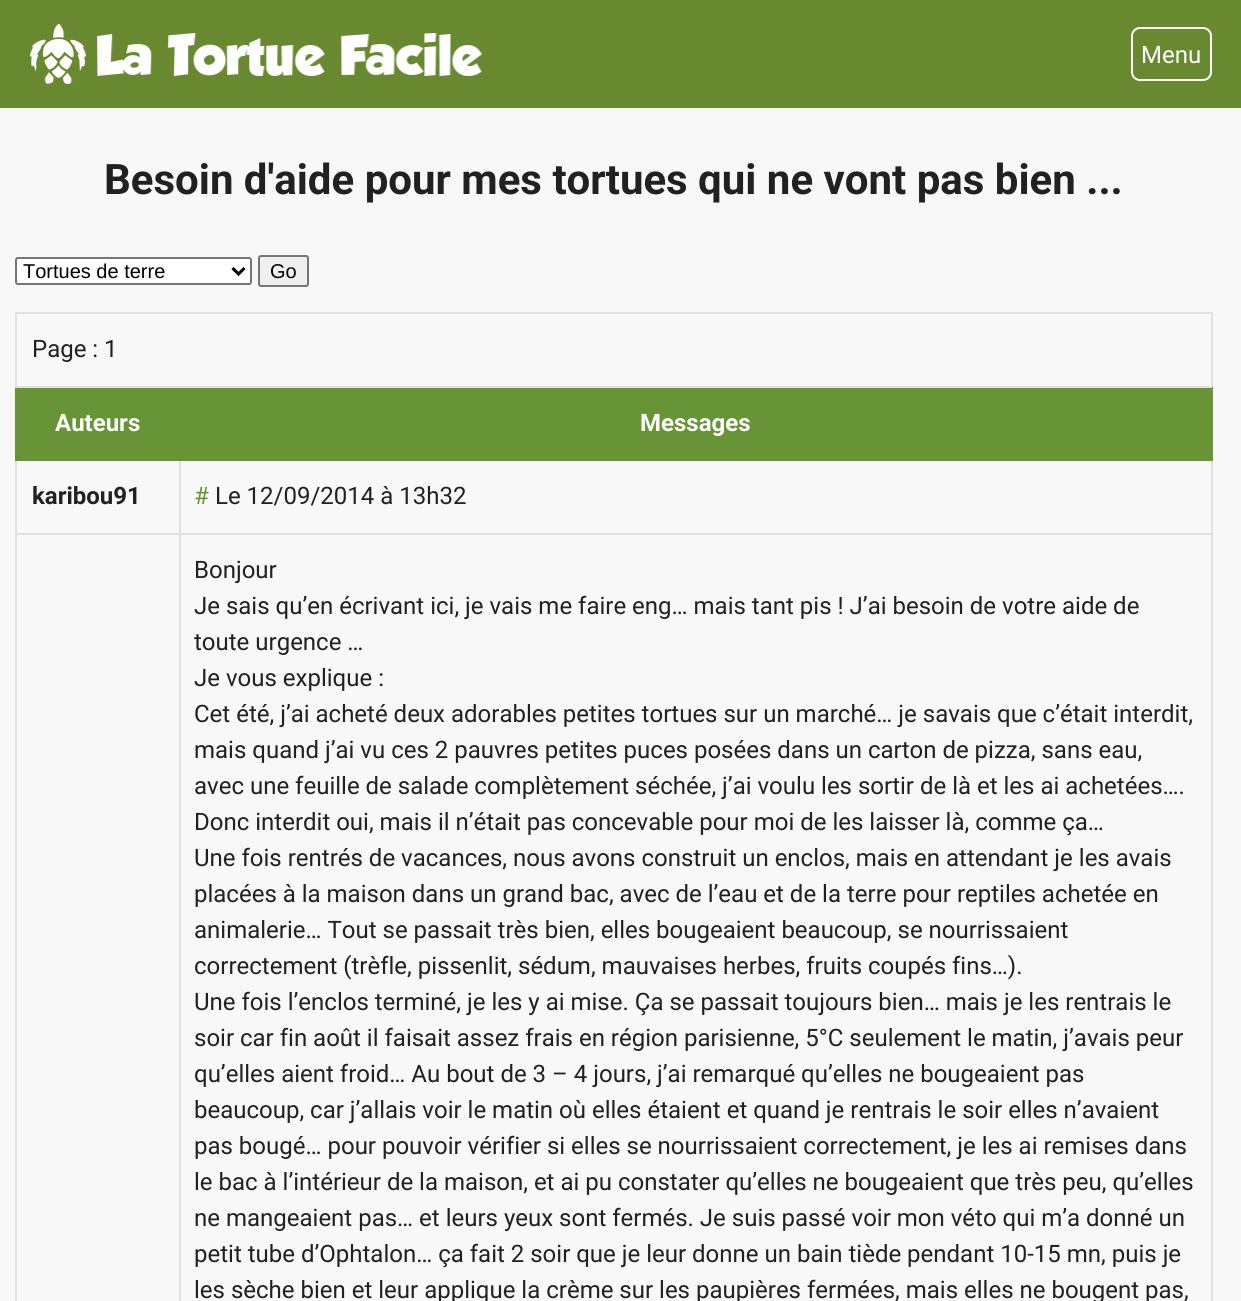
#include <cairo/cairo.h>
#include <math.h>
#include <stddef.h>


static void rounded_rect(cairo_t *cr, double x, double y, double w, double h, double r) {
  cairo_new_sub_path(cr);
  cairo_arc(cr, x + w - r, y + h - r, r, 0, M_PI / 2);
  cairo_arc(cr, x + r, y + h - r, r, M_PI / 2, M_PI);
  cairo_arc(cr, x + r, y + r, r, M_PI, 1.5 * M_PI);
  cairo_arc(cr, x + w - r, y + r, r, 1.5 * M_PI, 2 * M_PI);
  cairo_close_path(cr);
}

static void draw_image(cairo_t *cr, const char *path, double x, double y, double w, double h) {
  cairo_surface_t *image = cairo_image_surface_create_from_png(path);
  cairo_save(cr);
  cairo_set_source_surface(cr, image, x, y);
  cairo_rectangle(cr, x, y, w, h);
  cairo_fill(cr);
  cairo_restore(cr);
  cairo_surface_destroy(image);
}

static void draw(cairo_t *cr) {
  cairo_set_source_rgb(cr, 248 / 255.0, 248 / 255.0, 248 / 255.0);
  cairo_paint(cr);
  cairo_set_source_rgb(cr, 104 / 255.0, 137 / 255.0, 48 / 255.0);
  cairo_rectangle(cr, 0, 0, 1241, 108);
  cairo_fill(cr);
  draw_image(cr, "images/1.png", 30, 24, 453, 60);
  rounded_rect(cr, 1132, 28, 79, 52, 8);
  cairo_set_source_rgb(cr, 1, 1, 1);
  cairo_stroke(cr);
  rounded_rect(cr, 16, 258, 235, 26, 2);
  cairo_fill_preserve(cr);
  cairo_set_source_rgb(cr, 118 / 255.0, 118 / 255.0, 118 / 255.0);
  cairo_stroke(cr);
  cairo_new_path(cr);
  cairo_move_to(cr, 232.5, 268);
  cairo_line_to(cr, 238.5, 274);
  cairo_line_to(cr, 244.5, 268);
  cairo_set_source_rgb(cr, 0, 0, 0);
  cairo_set_line_width(cr, 3);
  cairo_stroke(cr);
  cairo_set_source_rgb(cr, 239 / 255.0, 239 / 255.0, 239 / 255.0);
  rounded_rect(cr, 259, 256, 49, 30, 2);
  cairo_fill_preserve(cr);
  cairo_set_source_rgb(cr, 118 / 255.0, 118 / 255.0, 118 / 255.0);
  cairo_set_line_width(cr, 2);
  cairo_stroke(cr);
  cairo_set_source_rgb(cr, 224 / 255.0, 224 / 255.0, 224 / 255.0);
  cairo_rectangle(cr, 15, 312, 1197, 2);
  cairo_fill(cr);
  cairo_rectangle(cr, 1211, 461, 2, 840);
  cairo_fill(cr);
  cairo_rectangle(cr, 15, 312, 2, 989);
  cairo_fill(cr);
  cairo_set_source_rgb(cr, 103 / 255.0, 148 / 255.0, 54 / 255.0);
  cairo_rectangle(cr, 1211, 386, 2, 75);
  cairo_fill(cr);
  cairo_set_source_rgb(cr, 224 / 255.0, 224 / 255.0, 224 / 255.0);
  cairo_rectangle(cr, 1211, 312, 2, 75);
  cairo_fill(cr);
  cairo_rectangle(cr, 15, 533, 1197, 2);
  cairo_fill(cr);
  cairo_rectangle(cr, 179, 459, 2, 842);
  cairo_fill(cr);
  cairo_set_source_rgb(cr, 103 / 255.0, 148 / 255.0, 54 / 255.0);
  cairo_rectangle(cr, 15, 459, 1197, 2);
  cairo_fill(cr);
  cairo_rectangle(cr, 15, 386, 2, 75);
  cairo_fill(cr);
  cairo_set_source_rgb(cr, 224 / 255.0, 224 / 255.0, 224 / 255.0);
  cairo_rectangle(cr, 15, 386, 1197, 2);
  cairo_fill(cr);
  cairo_set_source_rgb(cr, 103 / 255.0, 148 / 255.0, 54 / 255.0);
  cairo_rectangle(cr, 17, 388, 1194, 71);
  cairo_fill(cr);
  cairo_select_font_face(cr, "Roboto", CAIRO_FONT_SLANT_NORMAL, CAIRO_FONT_WEIGHT_NORMAL);
  cairo_set_font_size(cr, 24);
  cairo_set_source_rgb(cr, 1, 1, 1);
  cairo_move_to(cr, 1141, 63);
  cairo_show_text(cr, "Menu");
  cairo_select_font_face(cr, "Roboto", CAIRO_FONT_SLANT_NORMAL, CAIRO_FONT_WEIGHT_BOLD);
  cairo_set_font_size(cr, 42);
  cairo_set_source_rgb(cr, 33 / 255.0, 33 / 255.0, 33 / 255.0);
  cairo_move_to(cr, 104, 194);
  cairo_show_text(cr, "Besoin d'aide pour mes tortues qui ne vont pas bien ...");
  cairo_select_font_face(cr, "Liberation Sans", CAIRO_FONT_SLANT_NORMAL, CAIRO_FONT_WEIGHT_NORMAL);
  cairo_set_font_size(cr, 20);
  cairo_set_source_rgb(cr, 0, 0, 0);
  cairo_move_to(cr, 23, 278);
  cairo_show_text(cr, "Tortues de terre");
  cairo_move_to(cr, 270, 278);
  cairo_show_text(cr, "Go");
  cairo_select_font_face(cr, "Roboto", CAIRO_FONT_SLANT_NORMAL, CAIRO_FONT_WEIGHT_NORMAL);
  cairo_set_font_size(cr, 24);
  cairo_set_source_rgb(cr, 33 / 255.0, 33 / 255.0, 33 / 255.0);
  cairo_move_to(cr, 32, 357);
  cairo_show_text(cr, "Page : 1");
  cairo_select_font_face(cr, "Roboto", CAIRO_FONT_SLANT_NORMAL, CAIRO_FONT_WEIGHT_BOLD);
  cairo_set_source_rgb(cr, 1, 1, 1);
  cairo_move_to(cr, 55, 431);
  cairo_show_text(cr, "Auteurs");
  cairo_move_to(cr, 640, 431);
  cairo_show_text(cr, "Messages");
  cairo_set_source_rgb(cr, 33 / 255.0, 33 / 255.0, 33 / 255.0);
  cairo_move_to(cr, 32, 504);
  cairo_show_text(cr, "karibou91");
  cairo_select_font_face(cr, "Roboto", CAIRO_FONT_SLANT_NORMAL, CAIRO_FONT_WEIGHT_NORMAL);
  cairo_set_source_rgb(cr, 103 / 255.0, 148 / 255.0, 54 / 255.0);
  cairo_move_to(cr, 194, 504);
  cairo_show_text(cr, "#");
  cairo_set_source_rgb(cr, 33 / 255.0, 33 / 255.0, 33 / 255.0);
  cairo_move_to(cr, 215, 504);
  cairo_show_text(cr, "Le 12/09/2014 à 13h32");
  cairo_move_to(cr, 194, 578);
  cairo_show_text(cr, "Bonjour");
  cairo_move_to(cr, 194, 614);
  cairo_show_text(cr, "Je sais qu’en écrivant ici, je vais me faire eng… mais tant pis ! J’ai besoin de votre aide de");
  cairo_move_to(cr, 194, 650);
  cairo_show_text(cr, "toute urgence … ");
  cairo_move_to(cr, 194, 686);
  cairo_show_text(cr, "Je vous explique :");
  cairo_move_to(cr, 194, 722);
  cairo_show_text(cr, "Cet été, j’ai acheté deux adorables petites tortues sur un marché… je savais que c’était interdit,");
  cairo_move_to(cr, 194, 758);
  cairo_show_text(cr, "mais quand j’ai vu ces 2 pauvres petites puces posées dans un carton de pizza, sans eau,");
  cairo_move_to(cr, 194, 794);
  cairo_show_text(cr, "avec une feuille de salade complètement séchée, j’ai voulu les sortir de là et les ai achetées….");
  cairo_move_to(cr, 194, 830);
  cairo_show_text(cr, "Donc interdit oui, mais il n’était pas concevable pour moi de les laisser là, comme ça…");
  cairo_move_to(cr, 194, 866);
  cairo_show_text(cr, "Une fois rentrés de vacances, nous avons construit un enclos, mais en attendant je les avais");
  cairo_move_to(cr, 194, 902);
  cairo_show_text(cr, "placées à la maison dans un grand bac, avec de l’eau et de la terre pour reptiles achetée en");
  cairo_move_to(cr, 194, 938);
  cairo_show_text(cr, "animalerie… Tout se passait très bien, elles bougeaient beaucoup, se nourrissaient");
  cairo_move_to(cr, 194, 974);
  cairo_show_text(cr, "correctement (trèfle, pissenlit, sédum, mauvaises herbes, fruits coupés fins…).");
  cairo_move_to(cr, 194, 1010);
  cairo_show_text(cr, "Une fois l’enclos terminé, je les y ai mise. Ça se passait toujours bien… mais je les rentrais le");
  cairo_move_to(cr, 194, 1046);
  cairo_show_text(cr, "soir car fin août il faisait assez frais en région parisienne, 5°C seulement le matin, j’avais peur");
  cairo_move_to(cr, 194, 1082);
  cairo_show_text(cr, "qu’elles aient froid… Au bout de 3 – 4 jours, j’ai remarqué qu’elles ne bougeaient pas");
  cairo_move_to(cr, 194, 1118);
  cairo_show_text(cr, "beaucoup, car j’allais voir le matin où elles étaient et quand je rentrais le soir elles n’avaient");
  cairo_move_to(cr, 194, 1154);
  cairo_show_text(cr, "pas bougé… pour pouvoir vérifier si elles se nourrissaient correctement, je les ai remises dans");
  cairo_move_to(cr, 194, 1190);
  cairo_show_text(cr, "le bac à l’intérieur de la maison, et ai pu constater qu’elles ne bougeaient que très peu, qu’elles");
  cairo_move_to(cr, 194, 1226);
  cairo_show_text(cr, "ne mangeaient pas… et leurs yeux sont fermés. Je suis passé voir mon véto qui m’a donné un");
  cairo_move_to(cr, 194, 1262);
  cairo_show_text(cr, "petit tube d’Ophtalon… ça fait 2 soir que je leur donne un bain tiède pendant 10-15 mn, puis je");
  cairo_move_to(cr, 194, 1298);
  cairo_show_text(cr, "les sèche bien et leur applique la crème sur les paupières fermées, mais elles ne bougent pas,");
}

int main(void) {
  cairo_surface_t *surface = cairo_image_surface_create(CAIRO_FORMAT_RGB24, 1241, 1301);
  cairo_t *cr = cairo_create(surface);
  cairo_font_options_t *options = cairo_font_options_create();
  cairo_font_options_set_hint_metrics(options, CAIRO_HINT_METRICS_OFF);
  cairo_font_options_set_hint_style(options, CAIRO_HINT_STYLE_NONE);
  cairo_set_font_options(cr, options);
  cairo_set_miter_limit(cr, 4);
  draw(cr);
  cairo_surface_write_to_png(surface, "out.png");
  cairo_font_options_destroy(options);
  cairo_destroy(cr);
  cairo_surface_destroy(surface);
  return 0;
}
